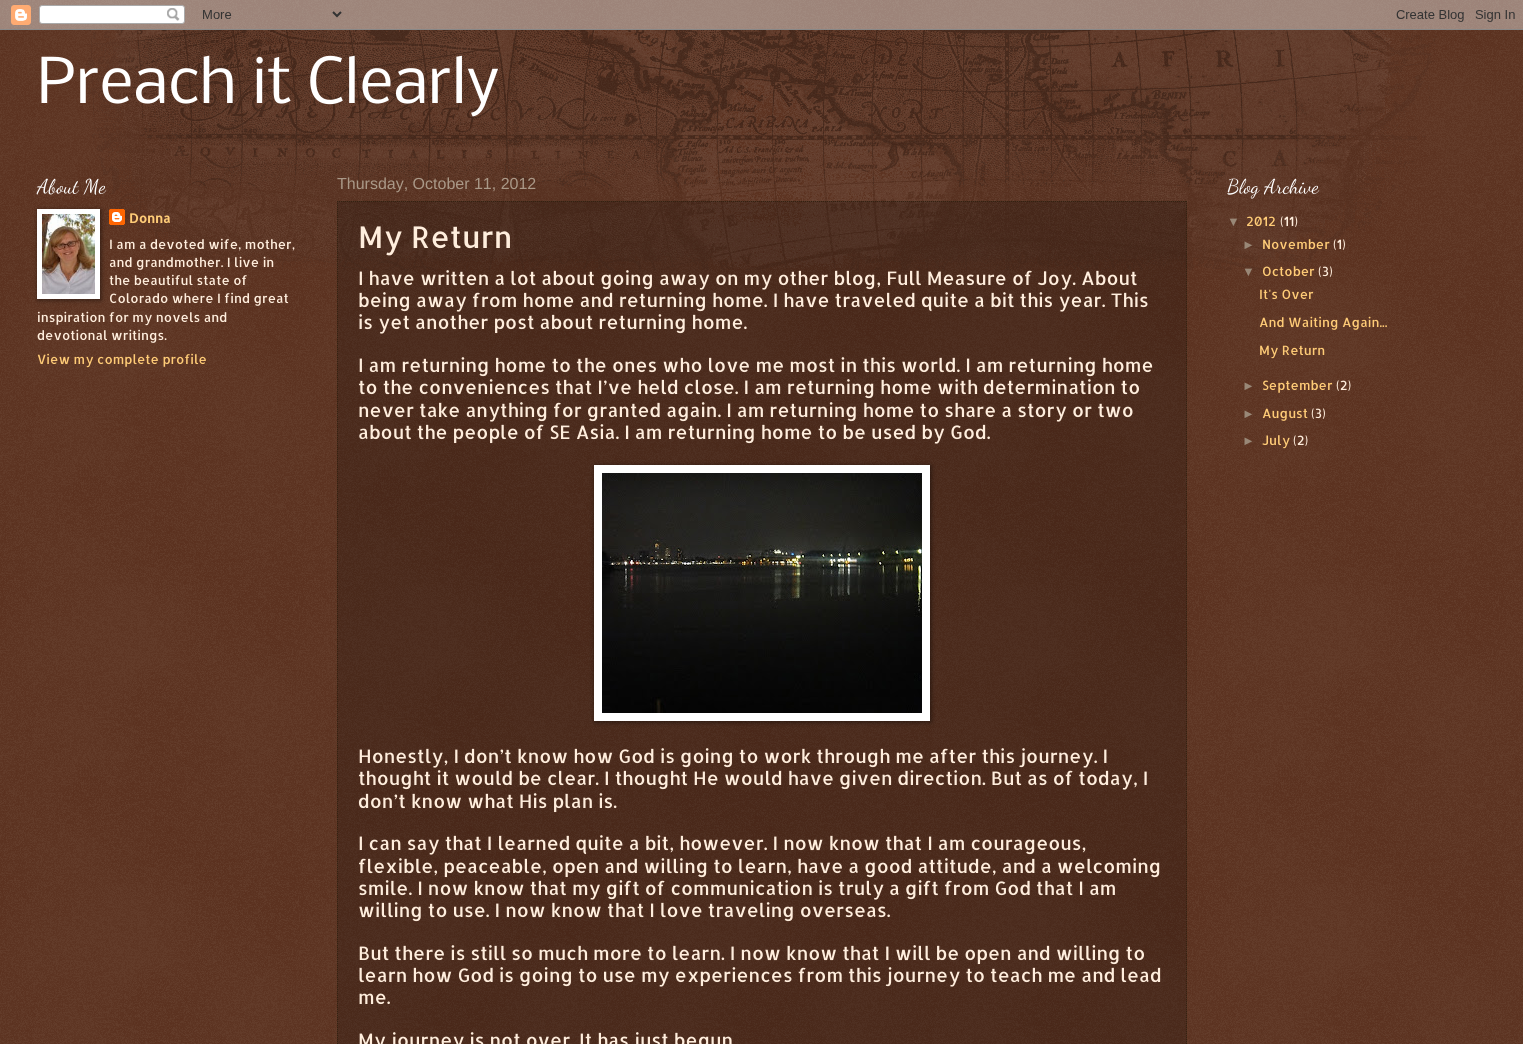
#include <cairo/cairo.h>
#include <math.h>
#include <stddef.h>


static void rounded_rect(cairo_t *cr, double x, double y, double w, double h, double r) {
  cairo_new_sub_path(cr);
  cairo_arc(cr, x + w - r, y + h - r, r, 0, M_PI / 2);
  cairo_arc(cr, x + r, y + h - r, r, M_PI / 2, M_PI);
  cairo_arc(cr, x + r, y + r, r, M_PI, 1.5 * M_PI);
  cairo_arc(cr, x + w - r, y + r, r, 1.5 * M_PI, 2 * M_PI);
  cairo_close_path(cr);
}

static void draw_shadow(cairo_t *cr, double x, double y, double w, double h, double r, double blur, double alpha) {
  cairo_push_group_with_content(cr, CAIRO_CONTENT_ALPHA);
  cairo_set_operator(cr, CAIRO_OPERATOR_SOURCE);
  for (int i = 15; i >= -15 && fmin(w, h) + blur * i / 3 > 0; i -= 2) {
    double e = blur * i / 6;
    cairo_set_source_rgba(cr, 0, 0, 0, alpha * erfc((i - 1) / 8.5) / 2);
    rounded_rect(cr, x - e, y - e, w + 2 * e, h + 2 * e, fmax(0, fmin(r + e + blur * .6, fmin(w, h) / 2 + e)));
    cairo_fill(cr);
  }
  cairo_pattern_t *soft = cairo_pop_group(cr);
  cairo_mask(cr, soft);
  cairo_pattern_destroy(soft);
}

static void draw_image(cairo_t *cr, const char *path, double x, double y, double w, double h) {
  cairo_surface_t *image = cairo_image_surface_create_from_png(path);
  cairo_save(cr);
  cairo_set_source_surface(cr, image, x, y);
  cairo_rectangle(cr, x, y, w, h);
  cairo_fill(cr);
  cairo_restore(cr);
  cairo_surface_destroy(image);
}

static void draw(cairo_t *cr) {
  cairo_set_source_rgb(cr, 68 / 255.0, 21 / 255.0, 0);
  cairo_paint(cr);
  draw_image(cr, "images/1.png", 0, 0, 1523, 1044);
  draw_image(cr, "images/2.png", 0, 0, 1523, 30);
  draw_image(cr, "images/3.png", 85, 30, 1352, 240);
  draw_image(cr, "images/5.png", 109, 209, 16, 16);
  cairo_set_source_rgb(cr, 0, 0, 0);
  draw_shadow(cr, 38, 210, 63, 90, 0, 2.5, 0.5);
  cairo_set_source_rgb(cr, 1, 1, 1);
  cairo_rectangle(cr, 37, 209, 63, 90);
  cairo_fill(cr);
  draw_image(cr, "images/4.png", 42, 214, 53, 80);
  cairo_set_source_rgba(cr, 0, 0, 0, 0.2);
  cairo_rectangle(cr, 337, 201, 850, 843);
  cairo_fill(cr);
  cairo_new_path(cr);
  cairo_move_to(cr, 337, 201.5);
  cairo_line_to(cr, 1187, 201.5);
  cairo_set_source_rgb(cr, 51 / 255.0, 34 / 255.0, 17 / 255.0);
  cairo_set_line_width(cr, 1);
  cairo_set_dash(cr, (double[]){1, 1}, 2, 0);
  cairo_stroke(cr);
  cairo_new_path(cr);
  cairo_move_to(cr, 1186.5, 201);
  cairo_line_to(cr, 1186.5, 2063);
  cairo_stroke(cr);
  cairo_new_path(cr);
  cairo_move_to(cr, 337.5, 201);
  cairo_line_to(cr, 337.5, 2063);
  cairo_stroke(cr);
  cairo_set_source_rgb(cr, 0, 0, 0);
  draw_shadow(cr, 595, 466, 336, 256, 0, 2.5, 0.5);
  cairo_set_source_rgb(cr, 1, 1, 1);
  cairo_rectangle(cr, 594, 465, 336, 256);
  cairo_fill(cr);
  draw_image(cr, "images/6.png", 602, 473, 320, 240);
  cairo_select_font_face(cr, "Nobile", CAIRO_FONT_SLANT_NORMAL, CAIRO_FONT_WEIGHT_NORMAL);
  cairo_set_font_size(cr, 60);
  cairo_move_to(cr, 37, 103);
  cairo_show_text(cr, "Preach it Clearly");
  cairo_select_font_face(cr, "Dancing Script", CAIRO_FONT_SLANT_NORMAL, CAIRO_FONT_WEIGHT_NORMAL);
  cairo_set_font_size(cr, 20);
  cairo_move_to(cr, 37, 193);
  cairo_show_text(cr, "About Me");
  cairo_select_font_face(cr, "Allerta", CAIRO_FONT_SLANT_NORMAL, CAIRO_FONT_WEIGHT_BOLD);
  cairo_set_font_size(cr, 12.9);
  cairo_set_source_rgb(cr, 1, 204 / 255.0, 119 / 255.0);
  cairo_move_to(cr, 129, 223);
  cairo_show_text(cr, "Donna");
  cairo_select_font_face(cr, "Allerta", CAIRO_FONT_SLANT_NORMAL, CAIRO_FONT_WEIGHT_NORMAL);
  cairo_set_source_rgb(cr, 1, 238 / 255.0, 221 / 255.0);
  cairo_move_to(cr, 109, 249);
  cairo_show_text(cr, "I am a devoted wife, mother,");
  cairo_move_to(cr, 109, 267);
  cairo_show_text(cr, "and grandmother. I live in");
  cairo_move_to(cr, 109, 285);
  cairo_show_text(cr, "the beautiful state of");
  cairo_move_to(cr, 109, 303);
  cairo_show_text(cr, "Colorado where I find great");
  cairo_move_to(cr, 37, 322);
  cairo_show_text(cr, "inspiration for my novels and");
  cairo_move_to(cr, 37, 340);
  cairo_show_text(cr, "devotional writings.");
  cairo_set_source_rgb(cr, 1, 204 / 255.0, 119 / 255.0);
  cairo_move_to(cr, 37, 364);
  cairo_show_text(cr, "View my complete profile");
  cairo_select_font_face(cr, "Liberation Sans", CAIRO_FONT_SLANT_NORMAL, CAIRO_FONT_WEIGHT_NORMAL);
  cairo_set_font_size(cr, 16);
  cairo_set_source_rgb(cr, 170 / 255.0, 153 / 255.0, 136 / 255.0);
  cairo_move_to(cr, 337, 189);
  cairo_show_text(cr, "Thursday, October 11, 2012");
  cairo_select_font_face(cr, "Allerta", CAIRO_FONT_SLANT_NORMAL, CAIRO_FONT_WEIGHT_NORMAL);
  cairo_set_font_size(cr, 30);
  cairo_set_source_rgb(cr, 1, 238 / 255.0, 221 / 255.0);
  cairo_move_to(cr, 358, 248);
  cairo_show_text(cr, "My Return");
  cairo_set_font_size(cr, 18.65);
  cairo_move_to(cr, 358, 285);
  cairo_show_text(cr, "I have written a lot about going away on my other blog, Full Measure of Joy. About");
  cairo_move_to(cr, 358, 307);
  cairo_show_text(cr, "being away from home and returning home. I have traveled quite a bit this year. This");
  cairo_move_to(cr, 358, 329);
  cairo_show_text(cr, "is yet another post about returning home.");
  cairo_move_to(cr, 358, 372);
  cairo_show_text(cr, "I am returning home to the ones who love me most in this world. I am returning home");
  cairo_move_to(cr, 358, 394);
  cairo_show_text(cr, "to the conveniences that I’ve held close. I am returning home with determination to");
  cairo_move_to(cr, 358, 417);
  cairo_show_text(cr, "never take anything for granted again. I am returning home to share a story or two");
  cairo_move_to(cr, 358, 439);
  cairo_show_text(cr, "about the people of SE Asia. I am returning home to be used by God.");
  cairo_move_to(cr, 358, 763);
  cairo_show_text(cr, "Honestly, I don’t know how God is going to work through me after this journey. I");
  cairo_move_to(cr, 358, 785);
  cairo_show_text(cr, "thought it would be clear. I thought He would have given direction. But as of today, I");
  cairo_move_to(cr, 358, 808);
  cairo_show_text(cr, "don’t know what His plan is.");
  cairo_move_to(cr, 358, 850);
  cairo_show_text(cr, "I can say that I learned quite a bit, however. I now know that I am courageous,");
  cairo_move_to(cr, 358, 873);
  cairo_show_text(cr, "flexible, peaceable, open and willing to learn, have a good attitude, and a welcoming");
  cairo_move_to(cr, 358, 895);
  cairo_show_text(cr, "smile. I now know that my gift of communication is truly a gift from God that I am");
  cairo_move_to(cr, 358, 917);
  cairo_show_text(cr, "willing to use. I now know that I love traveling overseas.");
  cairo_move_to(cr, 358, 960);
  cairo_show_text(cr, "But there is still so much more to learn. I now know that I will be open and willing to");
  cairo_move_to(cr, 358, 982);
  cairo_show_text(cr, "learn how God is going to use my experiences from this journey to teach me and lead");
  cairo_move_to(cr, 358, 1004);
  cairo_show_text(cr, "me.");
  cairo_move_to(cr, 358, 1047);
  cairo_show_text(cr, "My journey is not over. It has just begun");
  cairo_select_font_face(cr, "Dancing Script", CAIRO_FONT_SLANT_NORMAL, CAIRO_FONT_WEIGHT_NORMAL);
  cairo_set_font_size(cr, 20);
  cairo_set_source_rgb(cr, 1, 1, 1);
  cairo_move_to(cr, 1227, 193);
  cairo_show_text(cr, "Blog Archive");
  cairo_select_font_face(cr, "Liberation Sans", CAIRO_FONT_SLANT_NORMAL, CAIRO_FONT_WEIGHT_NORMAL);
  cairo_set_font_size(cr, 12.9);
  cairo_set_source_rgb(cr, 153 / 255.0, 136 / 255.0, 119 / 255.0);
  cairo_move_to(cr, 1227, 226);
  cairo_show_text(cr, "▼");
  cairo_select_font_face(cr, "Allerta", CAIRO_FONT_SLANT_NORMAL, CAIRO_FONT_WEIGHT_NORMAL);
  cairo_set_source_rgb(cr, 1, 204 / 255.0, 119 / 255.0);
  cairo_move_to(cr, 1246, 226);
  cairo_show_text(cr, "2012");
  cairo_set_source_rgb(cr, 1, 238 / 255.0, 221 / 255.0);
  cairo_move_to(cr, 1280, 226);
  cairo_show_text(cr, "(11)");
  cairo_select_font_face(cr, "Liberation Sans", CAIRO_FONT_SLANT_NORMAL, CAIRO_FONT_WEIGHT_NORMAL);
  cairo_set_source_rgb(cr, 153 / 255.0, 136 / 255.0, 119 / 255.0);
  cairo_move_to(cr, 1242, 249);
  cairo_show_text(cr, "►");
  cairo_select_font_face(cr, "Allerta", CAIRO_FONT_SLANT_NORMAL, CAIRO_FONT_WEIGHT_NORMAL);
  cairo_set_source_rgb(cr, 1, 204 / 255.0, 119 / 255.0);
  cairo_move_to(cr, 1262, 249);
  cairo_show_text(cr, "November");
  cairo_set_source_rgb(cr, 1, 238 / 255.0, 221 / 255.0);
  cairo_move_to(cr, 1333, 249);
  cairo_show_text(cr, "(1)");
  cairo_select_font_face(cr, "Liberation Sans", CAIRO_FONT_SLANT_NORMAL, CAIRO_FONT_WEIGHT_NORMAL);
  cairo_set_source_rgb(cr, 153 / 255.0, 136 / 255.0, 119 / 255.0);
  cairo_move_to(cr, 1242, 276);
  cairo_show_text(cr, "▼");
  cairo_select_font_face(cr, "Allerta", CAIRO_FONT_SLANT_NORMAL, CAIRO_FONT_WEIGHT_NORMAL);
  cairo_set_source_rgb(cr, 1, 204 / 255.0, 119 / 255.0);
  cairo_move_to(cr, 1262, 276);
  cairo_show_text(cr, "October");
  cairo_set_source_rgb(cr, 1, 238 / 255.0, 221 / 255.0);
  cairo_move_to(cr, 1318, 276);
  cairo_show_text(cr, "(3)");
  cairo_set_source_rgb(cr, 1, 204 / 255.0, 119 / 255.0);
  cairo_move_to(cr, 1259, 299);
  cairo_show_text(cr, "It's Over");
  cairo_move_to(cr, 1259, 327);
  cairo_show_text(cr, "And Waiting Again...");
  cairo_move_to(cr, 1259, 355);
  cairo_show_text(cr, "My Return");
  cairo_select_font_face(cr, "Liberation Sans", CAIRO_FONT_SLANT_NORMAL, CAIRO_FONT_WEIGHT_NORMAL);
  cairo_set_source_rgb(cr, 153 / 255.0, 136 / 255.0, 119 / 255.0);
  cairo_move_to(cr, 1242, 390);
  cairo_show_text(cr, "►");
  cairo_select_font_face(cr, "Allerta", CAIRO_FONT_SLANT_NORMAL, CAIRO_FONT_WEIGHT_NORMAL);
  cairo_set_source_rgb(cr, 1, 204 / 255.0, 119 / 255.0);
  cairo_move_to(cr, 1262, 390);
  cairo_show_text(cr, "September");
  cairo_set_source_rgb(cr, 1, 238 / 255.0, 221 / 255.0);
  cairo_move_to(cr, 1336, 390);
  cairo_show_text(cr, "(2)");
  cairo_select_font_face(cr, "Liberation Sans", CAIRO_FONT_SLANT_NORMAL, CAIRO_FONT_WEIGHT_NORMAL);
  cairo_set_source_rgb(cr, 153 / 255.0, 136 / 255.0, 119 / 255.0);
  cairo_move_to(cr, 1242, 418);
  cairo_show_text(cr, "►");
  cairo_select_font_face(cr, "Allerta", CAIRO_FONT_SLANT_NORMAL, CAIRO_FONT_WEIGHT_NORMAL);
  cairo_set_source_rgb(cr, 1, 204 / 255.0, 119 / 255.0);
  cairo_move_to(cr, 1262, 418);
  cairo_show_text(cr, "August");
  cairo_set_source_rgb(cr, 1, 238 / 255.0, 221 / 255.0);
  cairo_move_to(cr, 1311, 418);
  cairo_show_text(cr, "(3)");
  cairo_select_font_face(cr, "Liberation Sans", CAIRO_FONT_SLANT_NORMAL, CAIRO_FONT_WEIGHT_NORMAL);
  cairo_set_source_rgb(cr, 153 / 255.0, 136 / 255.0, 119 / 255.0);
  cairo_move_to(cr, 1242, 445);
  cairo_show_text(cr, "►");
  cairo_select_font_face(cr, "Allerta", CAIRO_FONT_SLANT_NORMAL, CAIRO_FONT_WEIGHT_NORMAL);
  cairo_set_source_rgb(cr, 1, 204 / 255.0, 119 / 255.0);
  cairo_move_to(cr, 1262, 445);
  cairo_show_text(cr, "July");
  cairo_set_source_rgb(cr, 1, 238 / 255.0, 221 / 255.0);
  cairo_move_to(cr, 1293, 445);
  cairo_show_text(cr, "(2)");
}

int main(void) {
  cairo_surface_t *surface = cairo_image_surface_create(CAIRO_FORMAT_RGB24, 1523, 1044);
  cairo_t *cr = cairo_create(surface);
  cairo_font_options_t *options = cairo_font_options_create();
  cairo_font_options_set_hint_metrics(options, CAIRO_HINT_METRICS_OFF);
  cairo_font_options_set_hint_style(options, CAIRO_HINT_STYLE_NONE);
  cairo_set_font_options(cr, options);
  cairo_set_miter_limit(cr, 4);
  draw(cr);
  cairo_surface_write_to_png(surface, "out.png");
  cairo_font_options_destroy(options);
  cairo_destroy(cr);
  cairo_surface_destroy(surface);
  return 0;
}
